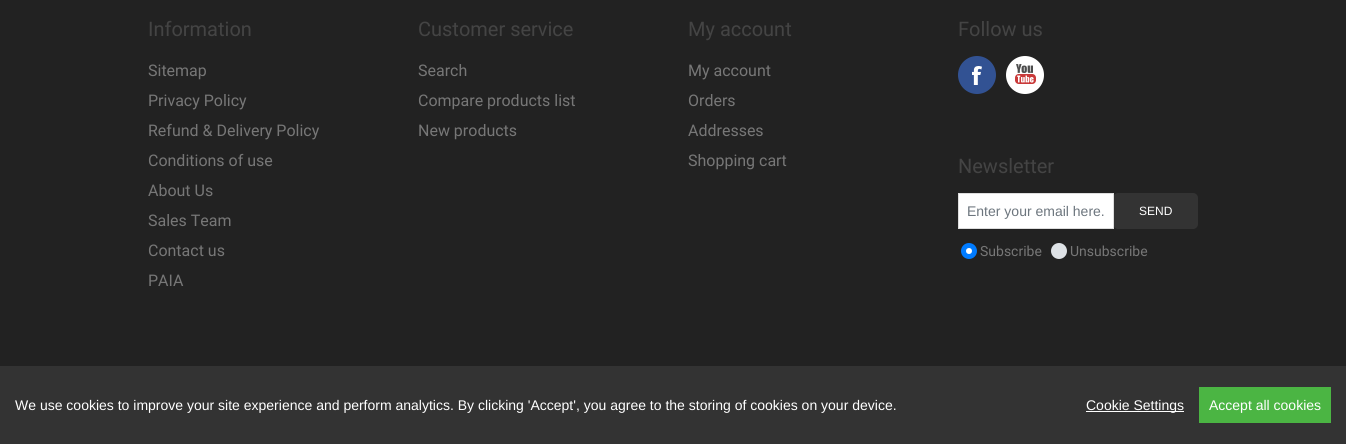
#include <cairo/cairo.h>
#include <math.h>
#include <stddef.h>


static void rounded_rect(cairo_t *cr, double x, double y, double w, double h, double r) {
  cairo_new_sub_path(cr);
  cairo_arc(cr, x + w - r, y + h - r, r, 0, M_PI / 2);
  cairo_arc(cr, x + r, y + h - r, r, M_PI / 2, M_PI);
  cairo_arc(cr, x + r, y + r, r, M_PI, 1.5 * M_PI);
  cairo_arc(cr, x + w - r, y + r, r, 1.5 * M_PI, 2 * M_PI);
  cairo_close_path(cr);
}

static void draw_image(cairo_t *cr, const char *path, double x, double y, double w, double h) {
  cairo_surface_t *image = cairo_image_surface_create_from_png(path);
  cairo_save(cr);
  cairo_set_source_surface(cr, image, x, y);
  cairo_rectangle(cr, x, y, w, h);
  cairo_fill(cr);
  cairo_restore(cr);
  cairo_surface_destroy(image);
}

static void draw(cairo_t *cr) {
  cairo_set_source_rgb(cr, 34 / 255.0, 34 / 255.0, 34 / 255.0);
  cairo_paint(cr);
  draw_image(cr, "images/1.png", 958, 56, 38, 38);
  draw_image(cr, "images/2.png", 1006, 56, 38, 38);
  cairo_set_source_rgb(cr, 51 / 255.0, 51 / 255.0, 51 / 255.0);
  rounded_rect(cr, 1113, 193, 85, 36, 5);
  cairo_fill(cr);
  cairo_set_source_rgb(cr, 1, 1, 1);
  cairo_rectangle(cr, 958.5, 193.5, 155, 35);
  cairo_fill_preserve(cr);
  cairo_set_source_rgb(cr, 221 / 255.0, 221 / 255.0, 221 / 255.0);
  cairo_set_line_width(cr, 1);
  cairo_stroke(cr);
  cairo_set_source_rgb(cr, 0, 123 / 255.0, 1);
  cairo_arc(cr, 969, 251, 8, 0, 2 * M_PI);
  cairo_fill(cr);
  cairo_set_source_rgb(cr, 1, 1, 1);
  cairo_arc(cr, 969, 251, 3, 0, 2 * M_PI);
  cairo_fill(cr);
  cairo_set_source_rgb(cr, 222 / 255.0, 226 / 255.0, 230 / 255.0);
  cairo_arc(cr, 1059, 251, 8, 0, 2 * M_PI);
  cairo_fill(cr);
  cairo_set_source_rgb(cr, 51 / 255.0, 51 / 255.0, 51 / 255.0);
  cairo_rectangle(cr, 0, 366, 1346, 78);
  cairo_fill(cr);
  cairo_set_source_rgb(cr, 1, 1, 1);
  cairo_rectangle(cr, 1086, 411, 98, 1);
  cairo_fill(cr);
  cairo_set_source_rgb(cr, 75 / 255.0, 181 / 255.0, 67 / 255.0);
  cairo_rectangle(cr, 1199, 387, 132, 36);
  cairo_fill(cr);
  cairo_select_font_face(cr, "Roboto", CAIRO_FONT_SLANT_NORMAL, CAIRO_FONT_WEIGHT_NORMAL);
  cairo_set_font_size(cr, 20);
  cairo_set_source_rgb(cr, 68 / 255.0, 68 / 255.0, 68 / 255.0);
  cairo_move_to(cr, 148, 36);
  cairo_show_text(cr, "Information");
  cairo_set_font_size(cr, 16);
  cairo_set_source_rgb(cr, 119 / 255.0, 119 / 255.0, 119 / 255.0);
  cairo_move_to(cr, 148, 76);
  cairo_show_text(cr, "Sitemap");
  cairo_move_to(cr, 148, 106);
  cairo_show_text(cr, "Privacy Policy");
  cairo_move_to(cr, 148, 136);
  cairo_show_text(cr, "Refund & Delivery Policy");
  cairo_move_to(cr, 148, 166);
  cairo_show_text(cr, "Conditions of use");
  cairo_move_to(cr, 148, 196);
  cairo_show_text(cr, "About Us");
  cairo_move_to(cr, 148, 226);
  cairo_show_text(cr, "Sales Team");
  cairo_move_to(cr, 148, 256);
  cairo_show_text(cr, "Contact us");
  cairo_move_to(cr, 148, 286);
  cairo_show_text(cr, "PAIA");
  cairo_set_font_size(cr, 20);
  cairo_set_source_rgb(cr, 68 / 255.0, 68 / 255.0, 68 / 255.0);
  cairo_move_to(cr, 418, 36);
  cairo_show_text(cr, "Customer service");
  cairo_set_font_size(cr, 16);
  cairo_set_source_rgb(cr, 119 / 255.0, 119 / 255.0, 119 / 255.0);
  cairo_move_to(cr, 418, 76);
  cairo_show_text(cr, "Search");
  cairo_move_to(cr, 418, 106);
  cairo_show_text(cr, "Compare products list");
  cairo_move_to(cr, 418, 136);
  cairo_show_text(cr, "New products");
  cairo_set_font_size(cr, 20);
  cairo_set_source_rgb(cr, 68 / 255.0, 68 / 255.0, 68 / 255.0);
  cairo_move_to(cr, 688, 36);
  cairo_show_text(cr, "My account");
  cairo_set_font_size(cr, 16);
  cairo_set_source_rgb(cr, 119 / 255.0, 119 / 255.0, 119 / 255.0);
  cairo_move_to(cr, 688, 76);
  cairo_show_text(cr, "My account");
  cairo_move_to(cr, 688, 106);
  cairo_show_text(cr, "Orders");
  cairo_move_to(cr, 688, 136);
  cairo_show_text(cr, "Addresses");
  cairo_move_to(cr, 688, 166);
  cairo_show_text(cr, "Shopping cart");
  cairo_set_font_size(cr, 20);
  cairo_set_source_rgb(cr, 68 / 255.0, 68 / 255.0, 68 / 255.0);
  cairo_move_to(cr, 958, 36);
  cairo_show_text(cr, "Follow us");
  cairo_move_to(cr, 958, 173);
  cairo_show_text(cr, "Newsletter");
  cairo_select_font_face(cr, "Liberation Sans", CAIRO_FONT_SLANT_NORMAL, CAIRO_FONT_WEIGHT_NORMAL);
  cairo_set_font_size(cr, 14);
  cairo_set_source_rgb(cr, 108 / 255.0, 117 / 255.0, 125 / 255.0);
  cairo_move_to(cr, 967, 216);
  cairo_show_text(cr, "Enter your email here.");
  cairo_set_font_size(cr, 12);
  cairo_set_source_rgb(cr, 1, 1, 1);
  cairo_move_to(cr, 1139, 215);
  cairo_show_text(cr, "SEND");
  cairo_select_font_face(cr, "Roboto", CAIRO_FONT_SLANT_NORMAL, CAIRO_FONT_WEIGHT_NORMAL);
  cairo_set_font_size(cr, 14);
  cairo_set_source_rgb(cr, 119 / 255.0, 119 / 255.0, 119 / 255.0);
  cairo_move_to(cr, 980, 256);
  cairo_show_text(cr, "Subscribe");
  cairo_move_to(cr, 1070, 256);
  cairo_show_text(cr, "Unsubscribe");
  cairo_select_font_face(cr, "Liberation Sans", CAIRO_FONT_SLANT_NORMAL, CAIRO_FONT_WEIGHT_NORMAL);
  cairo_set_source_rgb(cr, 1, 1, 1);
  cairo_move_to(cr, 15, 410);
  cairo_show_text(cr, "We use cookies to improve your site experience and perform analytics. By clicking 'Accept', you agree to the storing of cookies on your device.");
  cairo_move_to(cr, 1086, 410);
  cairo_show_text(cr, "Cookie Settings");
  cairo_move_to(cr, 1209, 410);
  cairo_show_text(cr, "Accept all cookies");
}

int main(void) {
  cairo_surface_t *surface = cairo_image_surface_create(CAIRO_FORMAT_RGB24, 1346, 444);
  cairo_t *cr = cairo_create(surface);
  cairo_font_options_t *options = cairo_font_options_create();
  cairo_font_options_set_hint_metrics(options, CAIRO_HINT_METRICS_OFF);
  cairo_font_options_set_hint_style(options, CAIRO_HINT_STYLE_NONE);
  cairo_set_font_options(cr, options);
  cairo_set_miter_limit(cr, 4);
  draw(cr);
  cairo_surface_write_to_png(surface, "out.png");
  cairo_font_options_destroy(options);
  cairo_destroy(cr);
  cairo_surface_destroy(surface);
  return 0;
}
